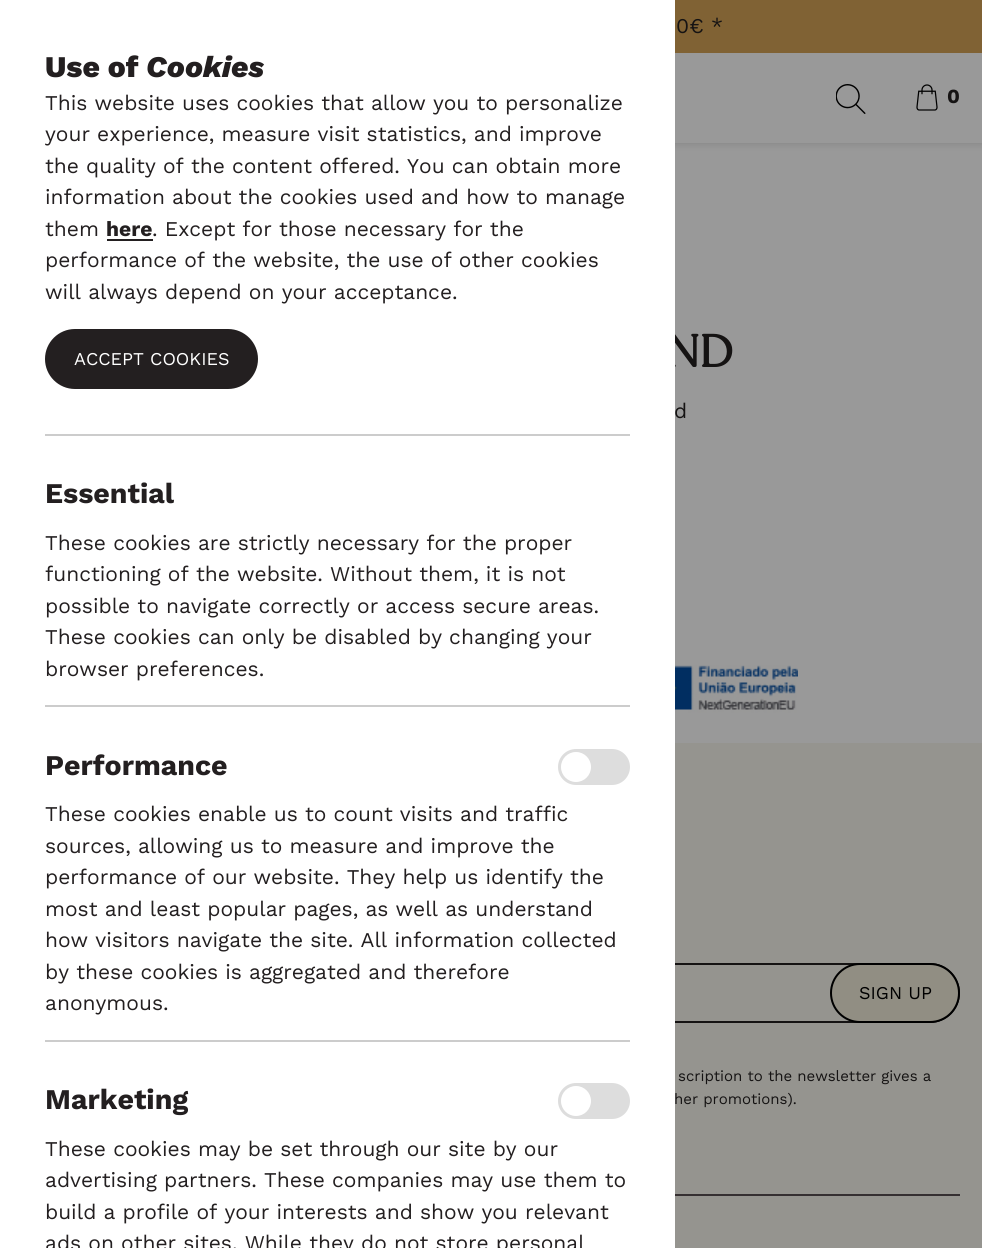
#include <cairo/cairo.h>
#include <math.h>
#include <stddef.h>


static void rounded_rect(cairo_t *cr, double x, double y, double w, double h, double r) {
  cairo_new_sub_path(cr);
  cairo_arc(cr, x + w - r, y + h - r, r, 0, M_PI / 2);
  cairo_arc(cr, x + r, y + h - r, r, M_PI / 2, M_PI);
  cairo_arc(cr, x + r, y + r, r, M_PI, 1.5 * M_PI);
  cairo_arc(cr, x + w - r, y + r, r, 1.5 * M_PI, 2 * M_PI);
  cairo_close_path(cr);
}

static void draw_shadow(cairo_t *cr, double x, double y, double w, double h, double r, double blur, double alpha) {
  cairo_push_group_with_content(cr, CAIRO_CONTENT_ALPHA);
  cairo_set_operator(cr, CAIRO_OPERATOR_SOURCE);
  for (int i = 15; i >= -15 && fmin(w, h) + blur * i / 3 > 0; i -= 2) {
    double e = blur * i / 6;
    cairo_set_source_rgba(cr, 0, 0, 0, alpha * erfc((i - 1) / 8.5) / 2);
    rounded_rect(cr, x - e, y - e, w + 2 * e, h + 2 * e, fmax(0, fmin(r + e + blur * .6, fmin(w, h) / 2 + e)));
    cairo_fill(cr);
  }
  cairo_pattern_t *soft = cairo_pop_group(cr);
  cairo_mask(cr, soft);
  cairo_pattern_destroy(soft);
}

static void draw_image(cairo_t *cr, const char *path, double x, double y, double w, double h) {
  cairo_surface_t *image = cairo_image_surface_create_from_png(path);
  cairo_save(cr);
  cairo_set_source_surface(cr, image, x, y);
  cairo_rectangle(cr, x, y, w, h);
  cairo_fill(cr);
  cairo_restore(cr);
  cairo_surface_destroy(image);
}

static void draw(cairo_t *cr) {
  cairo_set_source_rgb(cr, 153 / 255.0, 153 / 255.0, 153 / 255.0);
  cairo_paint(cr);
  cairo_set_source_rgb(cr, 0, 0, 0);
  draw_shadow(cr, 0, 0, 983, 143, 0, 4.5, 0.15);
  cairo_set_source_rgb(cr, 153 / 255.0, 153 / 255.0, 153 / 255.0);
  cairo_rectangle(cr, 675, 53, 307, 90);
  cairo_fill(cr);
  cairo_set_source_rgb(cr, 128 / 255.0, 98 / 255.0, 52 / 255.0);
  cairo_rectangle(cr, 675, 0, 307, 53);
  cairo_fill(cr);
  draw_image(cr, "images/1.png", 836, 84, 30, 30);
  draw_image(cr, "images/2.png", 916, 84, 22, 27);
  draw_image(cr, "images/3.png", 675, 665, 123, 55);
  cairo_set_source_rgb(cr, 149 / 255.0, 148 / 255.0, 143 / 255.0);
  cairo_rectangle(cr, 675, 743, 307, 505);
  cairo_fill(cr);
  cairo_set_source_rgb(cr, 53 / 255.0, 47 / 255.0, 49 / 255.0);
  cairo_rectangle(cr, 675, 1194, 285, 2);
  cairo_fill(cr);
  rounded_rect(cr, 24, 964, 935, 58, 29);
  cairo_set_source_rgb(cr, 21 / 255.0, 19 / 255.0, 19 / 255.0);
  cairo_stroke(cr);
  cairo_set_source_rgb(cr, 145 / 255.0, 142 / 255.0, 131 / 255.0);
  rounded_rect(cr, 831, 964, 128, 58, 29);
  cairo_fill_preserve(cr);
  cairo_set_source_rgb(cr, 0, 0, 0);
  cairo_stroke(cr);
  cairo_select_font_face(cr, "Work Sans", CAIRO_FONT_SLANT_NORMAL, CAIRO_FONT_WEIGHT_NORMAL);
  cairo_set_font_size(cr, 21);
  cairo_set_source_rgb(cr, 21 / 255.0, 19 / 255.0, 19 / 255.0);
  cairo_move_to(cr, 676, 33);
  cairo_show_text(cr, "0€ *");
  cairo_select_font_face(cr, "Work Sans", CAIRO_FONT_SLANT_NORMAL, CAIRO_FONT_WEIGHT_BOLD);
  cairo_set_font_size(cr, 20);
  cairo_move_to(cr, 947, 103);
  cairo_show_text(cr, "0");
  cairo_select_font_face(cr, "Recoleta", CAIRO_FONT_SLANT_NORMAL, CAIRO_FONT_WEIGHT_BOLD);
  cairo_set_font_size(cr, 45);
  cairo_move_to(cr, 666, 367);
  cairo_show_text(cr, "ND");
  cairo_select_font_face(cr, "Work Sans", CAIRO_FONT_SLANT_NORMAL, CAIRO_FONT_WEIGHT_NORMAL);
  cairo_set_font_size(cr, 21);
  cairo_move_to(cr, 674, 418);
  cairo_show_text(cr, "d");
  cairo_set_source_rgb(cr, 1, 1, 1);
  cairo_rectangle(cr, 0, 0, 675, 1248);
  cairo_fill(cr);
  cairo_set_source_rgb(cr, 221 / 255.0, 221 / 255.0, 221 / 255.0);
  rounded_rect(cr, 558, 1083, 72, 36, 18);
  cairo_fill(cr);
  cairo_set_source_rgb(cr, 1, 1, 1);
  cairo_arc(cr, 576, 1101, 15, 0, 2 * M_PI);
  cairo_fill(cr);
  cairo_set_source_rgb(cr, 221 / 255.0, 221 / 255.0, 221 / 255.0);
  rounded_rect(cr, 558, 749, 72, 36, 18);
  cairo_fill(cr);
  cairo_set_source_rgb(cr, 1, 1, 1);
  cairo_arc(cr, 576, 767, 15, 0, 2 * M_PI);
  cairo_fill(cr);
  cairo_set_source_rgb(cr, 35 / 255.0, 31 / 255.0, 32 / 255.0);
  rounded_rect(cr, 46, 330, 211, 58, 29);
  cairo_fill_preserve(cr);
  cairo_stroke(cr);
  cairo_set_font_size(cr, 18);
  cairo_set_source_rgb(cr, 1, 1, 1);
  cairo_move_to(cr, 74, 365);
  cairo_show_text(cr, "ACCEPT COOKIES");
  cairo_set_font_size(cr, 21);
  cairo_set_source_rgb(cr, 35 / 255.0, 31 / 255.0, 32 / 255.0);
  cairo_move_to(cr, 45, 1250);
  cairo_show_text(cr, "ads on other sites. While they do not store personal");
  cairo_move_to(cr, 45, 1219);
  cairo_show_text(cr, "build a profile of your interests and show you relevant");
  cairo_move_to(cr, 45, 1187);
  cairo_show_text(cr, "advertising partners. These companies may use them to");
  cairo_move_to(cr, 45, 1156);
  cairo_show_text(cr, "These cookies may be set through our site by our");
  cairo_select_font_face(cr, "Work Sans", CAIRO_FONT_SLANT_NORMAL, CAIRO_FONT_WEIGHT_BOLD);
  cairo_set_font_size(cr, 28.5);
  cairo_move_to(cr, 45, 1109);
  cairo_show_text(cr, "Marketing");
  cairo_select_font_face(cr, "Work Sans", CAIRO_FONT_SLANT_NORMAL, CAIRO_FONT_WEIGHT_NORMAL);
  cairo_set_font_size(cr, 21);
  cairo_move_to(cr, 45, 1010);
  cairo_show_text(cr, "anonymous.");
  cairo_move_to(cr, 45, 979);
  cairo_show_text(cr, "by these cookies is aggregated and therefore");
  cairo_move_to(cr, 45, 947);
  cairo_show_text(cr, "how visitors navigate the site. All information collected");
  cairo_move_to(cr, 45, 916);
  cairo_show_text(cr, "most and least popular pages, as well as understand");
  cairo_move_to(cr, 45, 884);
  cairo_show_text(cr, "performance of our website. They help us identify the");
  cairo_move_to(cr, 45, 853);
  cairo_show_text(cr, "sources, allowing us to measure and improve the");
  cairo_move_to(cr, 45, 821);
  cairo_show_text(cr, "These cookies enable us to count visits and traffic");
  cairo_select_font_face(cr, "Work Sans", CAIRO_FONT_SLANT_NORMAL, CAIRO_FONT_WEIGHT_BOLD);
  cairo_set_font_size(cr, 28.5);
  cairo_move_to(cr, 45, 775);
  cairo_show_text(cr, "Performance");
  cairo_select_font_face(cr, "Work Sans", CAIRO_FONT_SLANT_NORMAL, CAIRO_FONT_WEIGHT_NORMAL);
  cairo_set_font_size(cr, 21);
  cairo_move_to(cr, 45, 676);
  cairo_show_text(cr, "browser preferences.");
  cairo_move_to(cr, 45, 644);
  cairo_show_text(cr, "These cookies can only be disabled by changing your");
  cairo_move_to(cr, 45, 613);
  cairo_show_text(cr, "possible to navigate correctly or access secure areas.");
  cairo_move_to(cr, 45, 581);
  cairo_show_text(cr, "functioning of the website. Without them, it is not");
  cairo_move_to(cr, 45, 550);
  cairo_show_text(cr, "These cookies are strictly necessary for the proper");
  cairo_select_font_face(cr, "Work Sans", CAIRO_FONT_SLANT_NORMAL, CAIRO_FONT_WEIGHT_BOLD);
  cairo_set_font_size(cr, 28.5);
  cairo_move_to(cr, 45, 503);
  cairo_show_text(cr, "Essential");
  cairo_select_font_face(cr, "Work Sans", CAIRO_FONT_SLANT_NORMAL, CAIRO_FONT_WEIGHT_NORMAL);
  cairo_set_font_size(cr, 21);
  cairo_move_to(cr, 45, 299);
  cairo_show_text(cr, "will always depend on your acceptance.");
  cairo_move_to(cr, 45, 267);
  cairo_show_text(cr, "performance of the website, the use of other cookies");
  cairo_move_to(cr, 152, 236);
  cairo_show_text(cr, ". Except for those necessary for the");
  cairo_select_font_face(cr, "Work Sans", CAIRO_FONT_SLANT_NORMAL, CAIRO_FONT_WEIGHT_BOLD);
  cairo_move_to(cr, 106, 236);
  cairo_show_text(cr, "here");
  cairo_rectangle(cr, 107, 239, 46, 2);
  cairo_fill(cr);
  cairo_select_font_face(cr, "Work Sans", CAIRO_FONT_SLANT_NORMAL, CAIRO_FONT_WEIGHT_NORMAL);
  cairo_move_to(cr, 45, 236);
  cairo_show_text(cr, "them");
  cairo_move_to(cr, 45, 204);
  cairo_show_text(cr, "information about the cookies used and how to manage");
  cairo_move_to(cr, 45, 173);
  cairo_show_text(cr, "the quality of the content offered. You can obtain more");
  cairo_move_to(cr, 45, 141);
  cairo_show_text(cr, "your experience, measure visit statistics, and improve");
  cairo_move_to(cr, 45, 110);
  cairo_show_text(cr, "This website uses cookies that allow you to personalize");
  cairo_select_font_face(cr, "Work Sans ExtraBold", CAIRO_FONT_SLANT_ITALIC, CAIRO_FONT_WEIGHT_NORMAL);
  cairo_set_font_size(cr, 30);
  cairo_move_to(cr, 146, 77);
  cairo_show_text(cr, "Cookies");
  cairo_select_font_face(cr, "Work Sans ExtraBold", CAIRO_FONT_SLANT_NORMAL, CAIRO_FONT_WEIGHT_NORMAL);
  cairo_move_to(cr, 45, 77);
  cairo_show_text(cr, "Use of");
  cairo_set_source_rgb(cr, 204 / 255.0, 204 / 255.0, 204 / 255.0);
  cairo_rectangle(cr, 45, 1040, 585, 2);
  cairo_fill(cr);
  cairo_rectangle(cr, 45, 705, 585, 2);
  cairo_fill(cr);
  cairo_rectangle(cr, 45, 434, 585, 2);
  cairo_fill(cr);
  cairo_select_font_face(cr, "Work Sans", CAIRO_FONT_SLANT_NORMAL, CAIRO_FONT_WEIGHT_NORMAL);
  cairo_set_font_size(cr, 18);
  cairo_set_source_rgb(cr, 0, 0, 0);
  cairo_move_to(cr, 859, 999);
  cairo_show_text(cr, "SIGN UP");
  cairo_set_font_size(cr, 15);
  cairo_set_source_rgb(cr, 21 / 255.0, 19 / 255.0, 19 / 255.0);
  cairo_move_to(cr, 678, 1081);
  cairo_show_text(cr, "scription to the newsletter gives a");
  cairo_move_to(cr, 674, 1104);
  cairo_show_text(cr, "her promotions).");
}

int main(void) {
  cairo_surface_t *surface = cairo_image_surface_create(CAIRO_FORMAT_RGB24, 982, 1248);
  cairo_t *cr = cairo_create(surface);
  cairo_font_options_t *options = cairo_font_options_create();
  cairo_font_options_set_hint_metrics(options, CAIRO_HINT_METRICS_OFF);
  cairo_font_options_set_hint_style(options, CAIRO_HINT_STYLE_NONE);
  cairo_set_font_options(cr, options);
  cairo_set_miter_limit(cr, 4);
  draw(cr);
  cairo_surface_write_to_png(surface, "out.png");
  cairo_font_options_destroy(options);
  cairo_destroy(cr);
  cairo_surface_destroy(surface);
  return 0;
}
